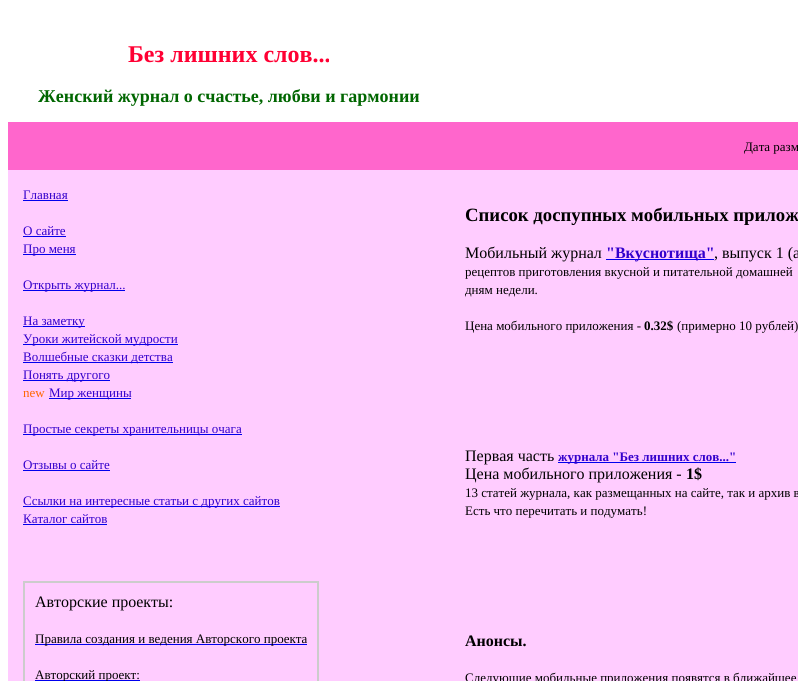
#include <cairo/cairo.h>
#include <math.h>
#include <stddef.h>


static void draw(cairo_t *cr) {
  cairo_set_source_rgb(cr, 1, 1, 1);
  cairo_paint(cr);
  cairo_set_source_rgb(cr, 1, 102 / 255.0, 204 / 255.0);
  cairo_rectangle(cr, 8, 122, 790, 48);
  cairo_fill(cr);
  cairo_set_source_rgb(cr, 1, 204 / 255.0, 1);
  cairo_rectangle(cr, 8, 170, 790, 511);
  cairo_fill(cr);
  cairo_set_source_rgb(cr, 0, 0, 238 / 255.0);
  cairo_rectangle(cr, 23, 200, 45, 1);
  cairo_fill(cr);
  cairo_rectangle(cr, 23, 236, 43, 1);
  cairo_fill(cr);
  cairo_rectangle(cr, 23, 254, 53, 1);
  cairo_fill(cr);
  cairo_rectangle(cr, 23, 290, 102, 1);
  cairo_fill(cr);
  cairo_rectangle(cr, 23, 326, 62, 1);
  cairo_fill(cr);
  cairo_rectangle(cr, 23, 344, 155, 1);
  cairo_fill(cr);
  cairo_rectangle(cr, 23, 362, 150, 1);
  cairo_fill(cr);
  cairo_rectangle(cr, 23, 380, 87, 1);
  cairo_fill(cr);
  cairo_rectangle(cr, 49, 398, 82, 1);
  cairo_fill(cr);
  cairo_rectangle(cr, 23, 434, 219, 1);
  cairo_fill(cr);
  cairo_rectangle(cr, 23, 470, 87, 1);
  cairo_fill(cr);
  cairo_rectangle(cr, 23, 506, 257, 1);
  cairo_fill(cr);
  cairo_rectangle(cr, 23, 524, 84, 1);
  cairo_fill(cr);
  cairo_rectangle(cr, 23.5, 581.5, 295, 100);
  cairo_set_source_rgb(cr, 204 / 255.0, 204 / 255.0, 204 / 255.0);
  cairo_set_line_width(cr, 1);
  cairo_stroke(cr);
  cairo_rectangle(cr, 24.5, 582.5, 293, 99);
  cairo_stroke(cr);
  cairo_set_source_rgb(cr, 0, 0, 238 / 255.0);
  cairo_rectangle(cr, 35, 644, 272, 1);
  cairo_fill(cr);
  cairo_rectangle(cr, 35, 680, 105, 1);
  cairo_fill(cr);
  cairo_rectangle(cr, 606, 259, 108, 1);
  cairo_fill(cr);
  cairo_rectangle(cr, 558, 462, 178, 1);
  cairo_fill(cr);
  cairo_select_font_face(cr, "Liberation Serif", CAIRO_FONT_SLANT_NORMAL, CAIRO_FONT_WEIGHT_BOLD);
  cairo_set_font_size(cr, 24);
  cairo_set_source_rgb(cr, 1, 0, 51 / 255.0);
  cairo_move_to(cr, 128, 62);
  cairo_show_text(cr, "Без лишних слов...");
  cairo_set_font_size(cr, 18);
  cairo_set_source_rgb(cr, 0, 102 / 255.0, 0);
  cairo_move_to(cr, 38, 102);
  cairo_show_text(cr, "Женский журнал о счастье, любви и гармонии");
  cairo_select_font_face(cr, "Liberation Serif", CAIRO_FONT_SLANT_NORMAL, CAIRO_FONT_WEIGHT_NORMAL);
  cairo_set_font_size(cr, 13);
  cairo_set_source_rgb(cr, 0, 0, 0);
  cairo_move_to(cr, 744, 151);
  cairo_show_text(cr, "Дата разм");
  cairo_set_source_rgb(cr, 51 / 255.0, 0, 204 / 255.0);
  cairo_move_to(cr, 23, 199);
  cairo_show_text(cr, "Главная");
  cairo_move_to(cr, 23, 235);
  cairo_show_text(cr, "О сайте");
  cairo_move_to(cr, 23, 253);
  cairo_show_text(cr, "Про меня");
  cairo_move_to(cr, 23, 289);
  cairo_show_text(cr, "Открыть журнал...");
  cairo_move_to(cr, 23, 325);
  cairo_show_text(cr, "На заметку");
  cairo_move_to(cr, 23, 343);
  cairo_show_text(cr, "Уроки житейской мудрости");
  cairo_move_to(cr, 23, 361);
  cairo_show_text(cr, "Волшебные сказки детства");
  cairo_move_to(cr, 23, 379);
  cairo_show_text(cr, "Понять другого");
  cairo_set_source_rgb(cr, 1, 102 / 255.0, 0);
  cairo_move_to(cr, 23, 397);
  cairo_show_text(cr, "new");
  cairo_set_source_rgb(cr, 51 / 255.0, 0, 204 / 255.0);
  cairo_move_to(cr, 49, 397);
  cairo_show_text(cr, "Мир женщины");
  cairo_move_to(cr, 23, 433);
  cairo_show_text(cr, "Простые секреты хранительницы очага");
  cairo_move_to(cr, 23, 469);
  cairo_show_text(cr, "Отзывы о сайте");
  cairo_move_to(cr, 23, 505);
  cairo_show_text(cr, "Ссылки на интересные статьи с других сайтов");
  cairo_move_to(cr, 23, 523);
  cairo_show_text(cr, "Каталог сайтов");
  cairo_set_font_size(cr, 16);
  cairo_set_source_rgb(cr, 0, 0, 0);
  cairo_move_to(cr, 35, 607);
  cairo_show_text(cr, "Авторские проекты:");
  cairo_set_font_size(cr, 13);
  cairo_move_to(cr, 35, 643);
  cairo_show_text(cr, "Правила создания и ведения Авторского проекта");
  cairo_move_to(cr, 35, 679);
  cairo_show_text(cr, "Авторский проект:");
  cairo_select_font_face(cr, "Liberation Serif", CAIRO_FONT_SLANT_NORMAL, CAIRO_FONT_WEIGHT_BOLD);
  cairo_set_font_size(cr, 18.75);
  cairo_move_to(cr, 465, 221);
  cairo_show_text(cr, "Список доспупных мобильных прилож");
  cairo_select_font_face(cr, "Liberation Serif", CAIRO_FONT_SLANT_NORMAL, CAIRO_FONT_WEIGHT_NORMAL);
  cairo_set_font_size(cr, 16);
  cairo_move_to(cr, 465, 258);
  cairo_show_text(cr, "Мобильный журнал");
  cairo_select_font_face(cr, "Liberation Serif", CAIRO_FONT_SLANT_NORMAL, CAIRO_FONT_WEIGHT_BOLD);
  cairo_set_source_rgb(cr, 51 / 255.0, 0, 204 / 255.0);
  cairo_move_to(cr, 606, 258);
  cairo_show_text(cr, "\"Вкуснотища\"");
  cairo_select_font_face(cr, "Liberation Serif", CAIRO_FONT_SLANT_NORMAL, CAIRO_FONT_WEIGHT_NORMAL);
  cairo_set_source_rgb(cr, 0, 0, 0);
  cairo_move_to(cr, 714, 258);
  cairo_show_text(cr, ", выпуск 1 (а");
  cairo_set_font_size(cr, 13);
  cairo_move_to(cr, 465, 276);
  cairo_show_text(cr, "рецептов приготовления вкусной и питательной домашней");
  cairo_move_to(cr, 465, 294);
  cairo_show_text(cr, "дням недели.");
  cairo_move_to(cr, 465, 330);
  cairo_show_text(cr, "Цена мобильного приложения -");
  cairo_select_font_face(cr, "Liberation Serif", CAIRO_FONT_SLANT_NORMAL, CAIRO_FONT_WEIGHT_BOLD);
  cairo_move_to(cr, 644, 330);
  cairo_show_text(cr, "0.32$");
  cairo_select_font_face(cr, "Liberation Serif", CAIRO_FONT_SLANT_NORMAL, CAIRO_FONT_WEIGHT_NORMAL);
  cairo_move_to(cr, 677, 330);
  cairo_show_text(cr, "(примерно 10 рублей)");
  cairo_set_font_size(cr, 16);
  cairo_move_to(cr, 465, 461);
  cairo_show_text(cr, "Первая часть");
  cairo_select_font_face(cr, "Liberation Serif", CAIRO_FONT_SLANT_NORMAL, CAIRO_FONT_WEIGHT_BOLD);
  cairo_set_font_size(cr, 13);
  cairo_set_source_rgb(cr, 51 / 255.0, 0, 204 / 255.0);
  cairo_move_to(cr, 558, 461);
  cairo_show_text(cr, "журнала \"Без лишних слов...\"");
  cairo_select_font_face(cr, "Liberation Serif", CAIRO_FONT_SLANT_NORMAL, CAIRO_FONT_WEIGHT_NORMAL);
  cairo_set_font_size(cr, 16);
  cairo_set_source_rgb(cr, 0, 0, 0);
  cairo_move_to(cr, 465, 479);
  cairo_show_text(cr, "Цена мобильного приложения -");
  cairo_select_font_face(cr, "Liberation Serif", CAIRO_FONT_SLANT_NORMAL, CAIRO_FONT_WEIGHT_BOLD);
  cairo_move_to(cr, 686, 479);
  cairo_show_text(cr, "1$");
  cairo_select_font_face(cr, "Liberation Serif", CAIRO_FONT_SLANT_NORMAL, CAIRO_FONT_WEIGHT_NORMAL);
  cairo_set_font_size(cr, 13);
  cairo_move_to(cr, 465, 497);
  cairo_show_text(cr, "13 статей журнала, как размещанных на сайте, так и архив в");
  cairo_move_to(cr, 465, 515);
  cairo_show_text(cr, "Есть что перечитать и подумать!");
  cairo_select_font_face(cr, "Liberation Serif", CAIRO_FONT_SLANT_NORMAL, CAIRO_FONT_WEIGHT_BOLD);
  cairo_set_font_size(cr, 16);
  cairo_move_to(cr, 465, 646);
  cairo_show_text(cr, "Анонсы.");
  cairo_select_font_face(cr, "Liberation Serif", CAIRO_FONT_SLANT_NORMAL, CAIRO_FONT_WEIGHT_NORMAL);
  cairo_set_font_size(cr, 13);
  cairo_move_to(cr, 465, 682);
  cairo_show_text(cr, "Следующие мобильные приложения появятся в ближайщее");
}

int main(void) {
  cairo_surface_t *surface = cairo_image_surface_create(CAIRO_FORMAT_RGB24, 798, 681);
  cairo_t *cr = cairo_create(surface);
  cairo_font_options_t *options = cairo_font_options_create();
  cairo_font_options_set_hint_metrics(options, CAIRO_HINT_METRICS_OFF);
  cairo_font_options_set_hint_style(options, CAIRO_HINT_STYLE_NONE);
  cairo_set_font_options(cr, options);
  cairo_set_miter_limit(cr, 4);
  draw(cr);
  cairo_surface_write_to_png(surface, "out.png");
  cairo_font_options_destroy(options);
  cairo_destroy(cr);
  cairo_surface_destroy(surface);
  return 0;
}
